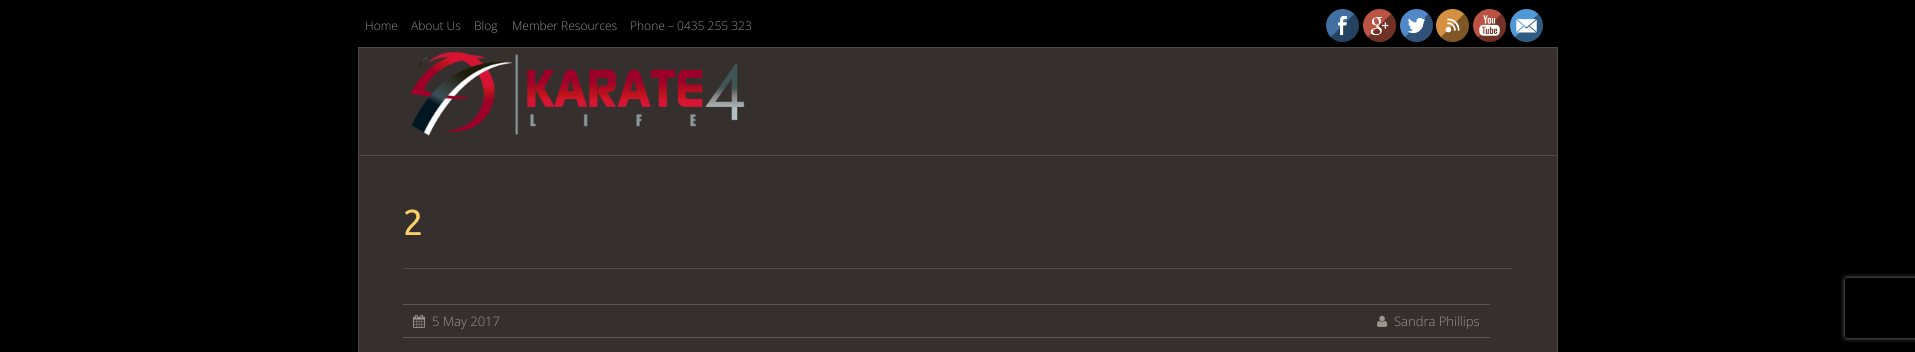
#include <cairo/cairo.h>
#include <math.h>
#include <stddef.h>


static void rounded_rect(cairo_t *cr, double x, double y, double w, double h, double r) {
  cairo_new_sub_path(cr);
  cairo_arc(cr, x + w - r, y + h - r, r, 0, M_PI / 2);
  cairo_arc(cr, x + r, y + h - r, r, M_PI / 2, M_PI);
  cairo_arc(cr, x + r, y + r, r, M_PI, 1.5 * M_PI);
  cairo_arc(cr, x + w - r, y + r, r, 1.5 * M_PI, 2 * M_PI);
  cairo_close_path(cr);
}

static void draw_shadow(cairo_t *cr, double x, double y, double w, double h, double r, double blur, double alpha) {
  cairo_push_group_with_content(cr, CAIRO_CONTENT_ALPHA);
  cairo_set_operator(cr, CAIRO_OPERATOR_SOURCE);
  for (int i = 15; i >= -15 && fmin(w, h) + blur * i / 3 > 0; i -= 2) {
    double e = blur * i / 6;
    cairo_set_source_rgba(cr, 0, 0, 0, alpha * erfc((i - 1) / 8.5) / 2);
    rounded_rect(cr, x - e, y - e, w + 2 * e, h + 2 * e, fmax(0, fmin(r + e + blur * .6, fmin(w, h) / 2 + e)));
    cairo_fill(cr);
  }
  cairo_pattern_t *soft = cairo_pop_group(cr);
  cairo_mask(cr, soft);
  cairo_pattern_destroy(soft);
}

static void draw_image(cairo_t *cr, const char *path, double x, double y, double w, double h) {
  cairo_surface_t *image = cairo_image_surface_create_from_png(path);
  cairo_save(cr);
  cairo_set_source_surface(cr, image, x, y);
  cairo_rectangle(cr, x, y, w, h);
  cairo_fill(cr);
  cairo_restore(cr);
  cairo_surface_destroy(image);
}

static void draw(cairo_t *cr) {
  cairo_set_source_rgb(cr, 0, 0, 0);
  cairo_paint(cr);
  draw_image(cr, "images/1.png", 1326, 9, 33, 33);
  draw_image(cr, "images/2.png", 1362, 9, 34, 33);
  draw_image(cr, "images/3.png", 1399, 9, 34, 33);
  draw_image(cr, "images/4.png", 1436, 9, 33, 33);
  draw_image(cr, "images/5.png", 1472, 9, 34, 33);
  draw_image(cr, "images/6.png", 1509, 9, 34, 33);
  cairo_set_source_rgb(cr, 53 / 255.0, 48 / 255.0, 46 / 255.0);
  cairo_rectangle(cr, 358.5, 47.5, 1199, 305);
  cairo_fill_preserve(cr);
  cairo_set_source_rgb(cr, 80 / 255.0, 73 / 255.0, 70 / 255.0);
  cairo_set_line_width(cr, 1);
  cairo_stroke(cr);
  cairo_rectangle(cr, 359, 155, 1198, 1);
  cairo_fill(cr);
  draw_image(cr, "images/7.png", 410, 51, 335, 85);
  cairo_rectangle(cr, 403, 268, 1110, 1);
  cairo_fill(cr);
  cairo_set_source_rgb(cr, 94 / 255.0, 85 / 255.0, 82 / 255.0);
  cairo_rectangle(cr, 403, 304, 1087, 1);
  cairo_fill(cr);
  cairo_rectangle(cr, 403, 337, 1087, 1);
  cairo_fill(cr);
  draw_image(cr, "images/8.png", 413, 314, 13, 14);
  draw_image(cr, "images/9.png", 1377, 315, 11, 12);
  cairo_save(cr);
  cairo_set_fill_rule(cr, CAIRO_FILL_RULE_EVEN_ODD);
  cairo_new_path(cr);
  cairo_move_to(cr, 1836, 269);
  cairo_line_to(cr, 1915, 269);
  cairo_line_to(cr, 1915, 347);
  cairo_line_to(cr, 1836, 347);
  cairo_close_path(cr);
  cairo_move_to(cr, 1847, 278);
  cairo_line_to(cr, 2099, 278);
  cairo_curve_to(cr, 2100, 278, 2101, 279, 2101, 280);
  cairo_line_to(cr, 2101, 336);
  cairo_curve_to(cr, 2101, 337, 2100, 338, 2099, 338);
  cairo_line_to(cr, 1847, 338);
  cairo_curve_to(cr, 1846, 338, 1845, 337, 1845, 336);
  cairo_line_to(cr, 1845, 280);
  cairo_curve_to(cr, 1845, 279, 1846, 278, 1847, 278);
  cairo_close_path(cr);
  cairo_clip(cr);
  cairo_set_source_rgb(cr, 128 / 255.0, 128 / 255.0, 128 / 255.0);
  draw_shadow(cr, 1845, 278, 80, 60, 2, 2.5, 1);
  cairo_restore(cr);
  cairo_select_font_face(cr, "Open Sans Light", CAIRO_FONT_SLANT_NORMAL, CAIRO_FONT_WEIGHT_NORMAL);
  cairo_set_font_size(cr, 12);
  cairo_set_source_rgb(cr, 142 / 255.0, 142 / 255.0, 142 / 255.0);
  cairo_move_to(cr, 365, 30);
  cairo_show_text(cr, "Home");
  cairo_move_to(cr, 411, 30);
  cairo_show_text(cr, "About Us");
  cairo_move_to(cr, 474, 30);
  cairo_show_text(cr, "Blog");
  cairo_move_to(cr, 512, 30);
  cairo_show_text(cr, "Member Resources");
  cairo_move_to(cr, 630, 30);
  cairo_show_text(cr, "Phone – 0435 255 323");
  cairo_select_font_face(cr, "Ubuntu", CAIRO_FONT_SLANT_NORMAL, CAIRO_FONT_WEIGHT_NORMAL);
  cairo_set_font_size(cr, 36);
  cairo_set_source_rgb(cr, 250 / 255.0, 209 / 255.0, 105 / 255.0);
  cairo_move_to(cr, 403, 235);
  cairo_show_text(cr, "2");
  cairo_select_font_face(cr, "Open Sans Light", CAIRO_FONT_SLANT_NORMAL, CAIRO_FONT_WEIGHT_NORMAL);
  cairo_set_font_size(cr, 13);
  cairo_set_source_rgb(cr, 159 / 255.0, 148 / 255.0, 144 / 255.0);
  cairo_move_to(cr, 432, 326);
  cairo_show_text(cr, "5 May 2017");
  cairo_move_to(cr, 1394, 326);
  cairo_show_text(cr, "Sandra Phillips");
}

int main(void) {
  cairo_surface_t *surface = cairo_image_surface_create(CAIRO_FORMAT_RGB24, 1915, 352);
  cairo_t *cr = cairo_create(surface);
  cairo_font_options_t *options = cairo_font_options_create();
  cairo_font_options_set_hint_metrics(options, CAIRO_HINT_METRICS_OFF);
  cairo_font_options_set_hint_style(options, CAIRO_HINT_STYLE_NONE);
  cairo_set_font_options(cr, options);
  cairo_set_miter_limit(cr, 4);
  draw(cr);
  cairo_surface_write_to_png(surface, "out.png");
  cairo_font_options_destroy(options);
  cairo_destroy(cr);
  cairo_surface_destroy(surface);
  return 0;
}
